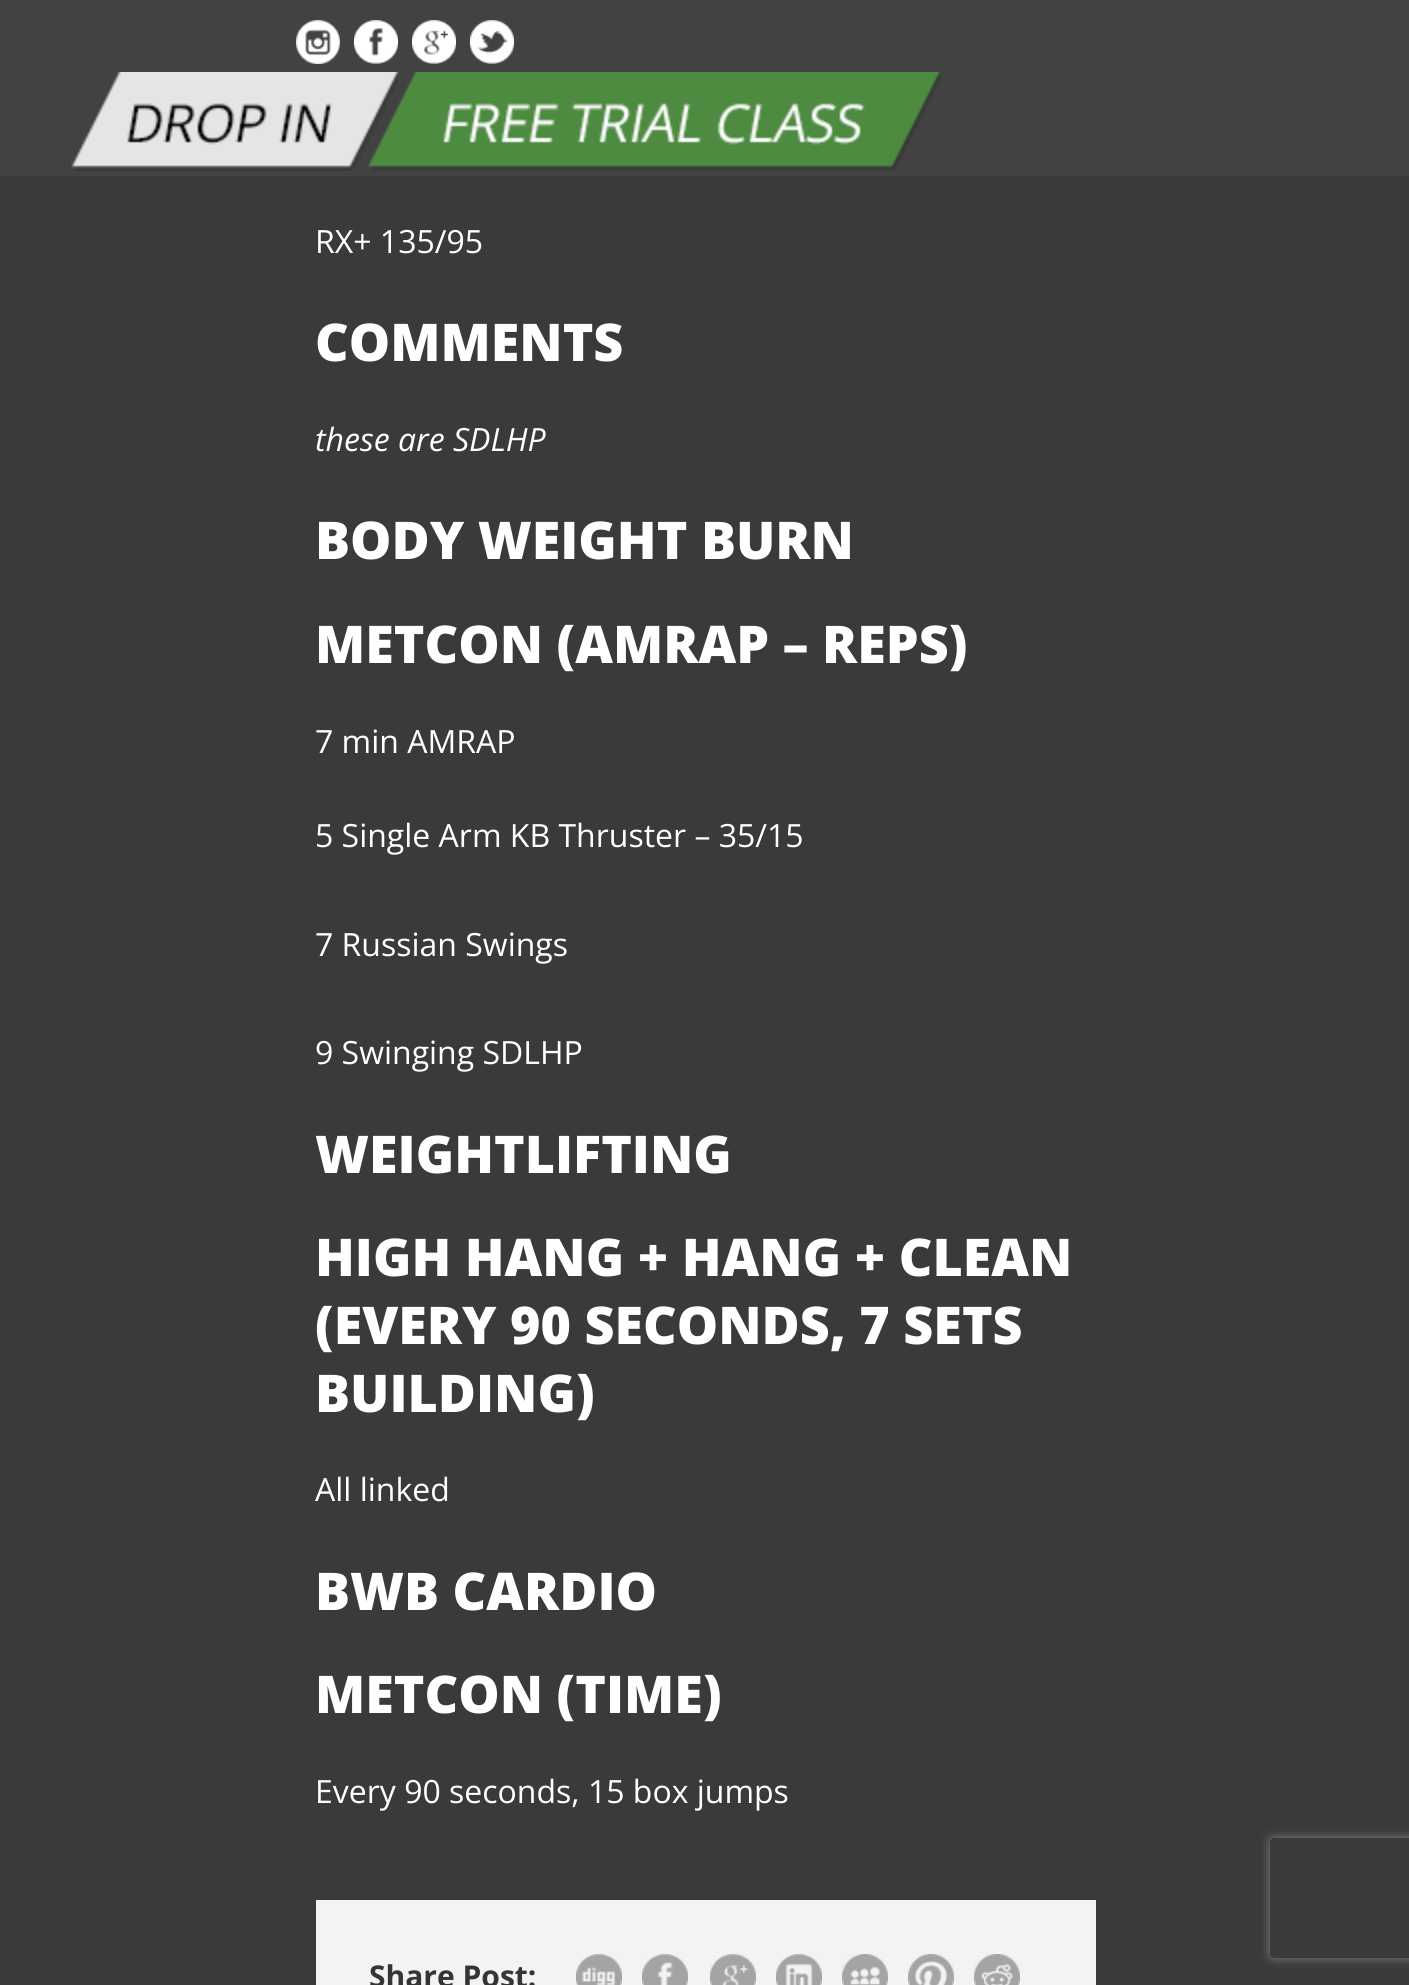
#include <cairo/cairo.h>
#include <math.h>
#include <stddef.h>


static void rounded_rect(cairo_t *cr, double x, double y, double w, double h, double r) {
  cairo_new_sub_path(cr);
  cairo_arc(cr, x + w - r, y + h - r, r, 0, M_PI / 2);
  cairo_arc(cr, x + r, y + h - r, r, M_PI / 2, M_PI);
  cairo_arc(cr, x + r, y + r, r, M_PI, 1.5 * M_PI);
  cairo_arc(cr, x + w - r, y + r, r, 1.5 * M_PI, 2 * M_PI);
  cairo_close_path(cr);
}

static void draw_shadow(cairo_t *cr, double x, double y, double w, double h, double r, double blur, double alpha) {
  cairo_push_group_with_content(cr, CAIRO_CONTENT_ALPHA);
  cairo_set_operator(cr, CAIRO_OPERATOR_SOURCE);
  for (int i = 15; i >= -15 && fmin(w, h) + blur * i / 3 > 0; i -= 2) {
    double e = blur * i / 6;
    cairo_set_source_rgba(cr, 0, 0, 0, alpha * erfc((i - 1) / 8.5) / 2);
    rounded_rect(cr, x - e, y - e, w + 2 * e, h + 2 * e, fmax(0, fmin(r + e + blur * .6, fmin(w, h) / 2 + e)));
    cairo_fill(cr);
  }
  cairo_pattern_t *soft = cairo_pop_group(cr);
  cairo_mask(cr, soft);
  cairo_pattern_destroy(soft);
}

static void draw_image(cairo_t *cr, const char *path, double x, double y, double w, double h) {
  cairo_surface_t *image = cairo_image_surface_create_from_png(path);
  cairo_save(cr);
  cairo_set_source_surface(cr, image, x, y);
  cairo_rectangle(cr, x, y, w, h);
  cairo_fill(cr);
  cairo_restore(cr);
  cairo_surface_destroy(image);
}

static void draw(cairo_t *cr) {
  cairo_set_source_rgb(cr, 57 / 255.0, 58 / 255.0, 59 / 255.0);
  cairo_paint(cr);
  cairo_set_source_rgb(cr, 66 / 255.0, 66 / 255.0, 66 / 255.0);
  cairo_rectangle(cr, 0, 0, 1409, 176);
  cairo_fill(cr);
  draw_image(cr, "images/1.png", 296, 20, 44, 44);
  draw_image(cr, "images/2.png", 354, 20, 44, 44);
  draw_image(cr, "images/3.png", 412, 20, 44, 44);
  draw_image(cr, "images/4.png", 470, 20, 44, 44);
  draw_image(cr, "images/6.png", 367, 72, 575, 99);
  draw_image(cr, "images/5.png", 71, 72, 328, 99);
  cairo_set_source_rgb(cr, 243 / 255.0, 243 / 255.0, 243 / 255.0);
  cairo_rectangle(cr, 316, 1900, 780, 85);
  cairo_fill(cr);
  draw_image(cr, "images/7.png", 576, 1954, 46, 31);
  draw_image(cr, "images/8.png", 642, 1954, 46, 31);
  draw_image(cr, "images/9.png", 710, 1954, 46, 31);
  draw_image(cr, "images/10.png", 776, 1954, 46, 31);
  draw_image(cr, "images/11.png", 842, 1954, 46, 31);
  draw_image(cr, "images/12.png", 908, 1954, 46, 31);
  draw_image(cr, "images/13.png", 974, 1954, 46, 31);
  cairo_save(cr);
  cairo_set_fill_rule(cr, CAIRO_FILL_RULE_EVEN_ODD);
  cairo_new_path(cr);
  cairo_move_to(cr, 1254, 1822);
  cairo_line_to(cr, 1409, 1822);
  cairo_line_to(cr, 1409, 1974);
  cairo_line_to(cr, 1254, 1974);
  cairo_close_path(cr);
  cairo_move_to(cr, 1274, 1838);
  cairo_line_to(cr, 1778, 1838);
  cairo_curve_to(cr, 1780, 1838, 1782, 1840, 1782, 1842);
  cairo_line_to(cr, 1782, 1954);
  cairo_curve_to(cr, 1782, 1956, 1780, 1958, 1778, 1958);
  cairo_line_to(cr, 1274, 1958);
  cairo_curve_to(cr, 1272, 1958, 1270, 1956, 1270, 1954);
  cairo_line_to(cr, 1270, 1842);
  cairo_curve_to(cr, 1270, 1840, 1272, 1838, 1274, 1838);
  cairo_close_path(cr);
  cairo_clip(cr);
  cairo_set_source_rgb(cr, 128 / 255.0, 128 / 255.0, 128 / 255.0);
  draw_shadow(cr, 1270, 1838, 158, 120, 4, 5, 1);
  cairo_restore(cr);
  cairo_select_font_face(cr, "Open Sans", CAIRO_FONT_SLANT_NORMAL, CAIRO_FONT_WEIGHT_NORMAL);
  cairo_set_font_size(cr, 32);
  cairo_set_source_rgb(cr, 1, 1, 1);
  cairo_move_to(cr, 315, 253);
  cairo_show_text(cr, "RX+ 135/95");
  cairo_select_font_face(cr, "Open Sans ExtraBold", CAIRO_FONT_SLANT_NORMAL, CAIRO_FONT_WEIGHT_NORMAL);
  cairo_set_font_size(cr, 52);
  cairo_move_to(cr, 315, 361);
  cairo_show_text(cr, "COMMENTS");
  cairo_select_font_face(cr, "Open Sans", CAIRO_FONT_SLANT_ITALIC, CAIRO_FONT_WEIGHT_NORMAL);
  cairo_set_font_size(cr, 32);
  cairo_move_to(cr, 315, 451);
  cairo_show_text(cr, "these are SDLHP");
  cairo_select_font_face(cr, "Open Sans ExtraBold", CAIRO_FONT_SLANT_NORMAL, CAIRO_FONT_WEIGHT_NORMAL);
  cairo_set_font_size(cr, 52);
  cairo_move_to(cr, 315, 559);
  cairo_show_text(cr, "BODY WEIGHT BURN");
  cairo_move_to(cr, 315, 663);
  cairo_show_text(cr, "METCON (AMRAP – REPS)");
  cairo_select_font_face(cr, "Open Sans", CAIRO_FONT_SLANT_NORMAL, CAIRO_FONT_WEIGHT_NORMAL);
  cairo_set_font_size(cr, 32);
  cairo_move_to(cr, 315, 753);
  cairo_show_text(cr, "7 min AMRAP");
  cairo_move_to(cr, 315, 847);
  cairo_show_text(cr, "5 Single Arm KB Thruster – 35/15");
  cairo_move_to(cr, 315, 956);
  cairo_show_text(cr, "7 Russian Swings");
  cairo_move_to(cr, 315, 1064);
  cairo_show_text(cr, "9 Swinging SDLHP");
  cairo_select_font_face(cr, "Open Sans ExtraBold", CAIRO_FONT_SLANT_NORMAL, CAIRO_FONT_WEIGHT_NORMAL);
  cairo_set_font_size(cr, 52);
  cairo_move_to(cr, 315, 1173);
  cairo_show_text(cr, "WEIGHTLIFTING");
  cairo_move_to(cr, 315, 1276);
  cairo_show_text(cr, "HIGH HANG + HANG + CLEAN");
  cairo_move_to(cr, 315, 1344);
  cairo_show_text(cr, "(EVERY 90 SECONDS, 7 SETS");
  cairo_move_to(cr, 315, 1412);
  cairo_show_text(cr, "BUILDING)");
  cairo_select_font_face(cr, "Open Sans", CAIRO_FONT_SLANT_NORMAL, CAIRO_FONT_WEIGHT_NORMAL);
  cairo_set_font_size(cr, 32);
  cairo_move_to(cr, 315, 1501);
  cairo_show_text(cr, "All linked");
  cairo_select_font_face(cr, "Open Sans ExtraBold", CAIRO_FONT_SLANT_NORMAL, CAIRO_FONT_WEIGHT_NORMAL);
  cairo_set_font_size(cr, 52);
  cairo_move_to(cr, 315, 1610);
  cairo_show_text(cr, "BWB CARDIO");
  cairo_move_to(cr, 315, 1713);
  cairo_show_text(cr, "METCON (TIME)");
  cairo_select_font_face(cr, "Open Sans", CAIRO_FONT_SLANT_NORMAL, CAIRO_FONT_WEIGHT_NORMAL);
  cairo_set_font_size(cr, 32);
  cairo_move_to(cr, 315, 1803);
  cairo_show_text(cr, "Every 90 seconds, 15 box jumps");
  cairo_select_font_face(cr, "Open Sans", CAIRO_FONT_SLANT_NORMAL, CAIRO_FONT_WEIGHT_BOLD);
  cairo_set_font_size(cr, 30);
  cairo_set_source_rgb(cr, 53 / 255.0, 53 / 255.0, 53 / 255.0);
  cairo_move_to(cr, 369, 1987);
  cairo_show_text(cr, "Share Post:");
}

int main(void) {
  cairo_surface_t *surface = cairo_image_surface_create(CAIRO_FORMAT_RGB24, 1409, 1985);
  cairo_t *cr = cairo_create(surface);
  cairo_font_options_t *options = cairo_font_options_create();
  cairo_font_options_set_hint_metrics(options, CAIRO_HINT_METRICS_OFF);
  cairo_font_options_set_hint_style(options, CAIRO_HINT_STYLE_NONE);
  cairo_set_font_options(cr, options);
  cairo_set_miter_limit(cr, 4);
  draw(cr);
  cairo_surface_write_to_png(surface, "out.png");
  cairo_font_options_destroy(options);
  cairo_destroy(cr);
  cairo_surface_destroy(surface);
  return 0;
}
